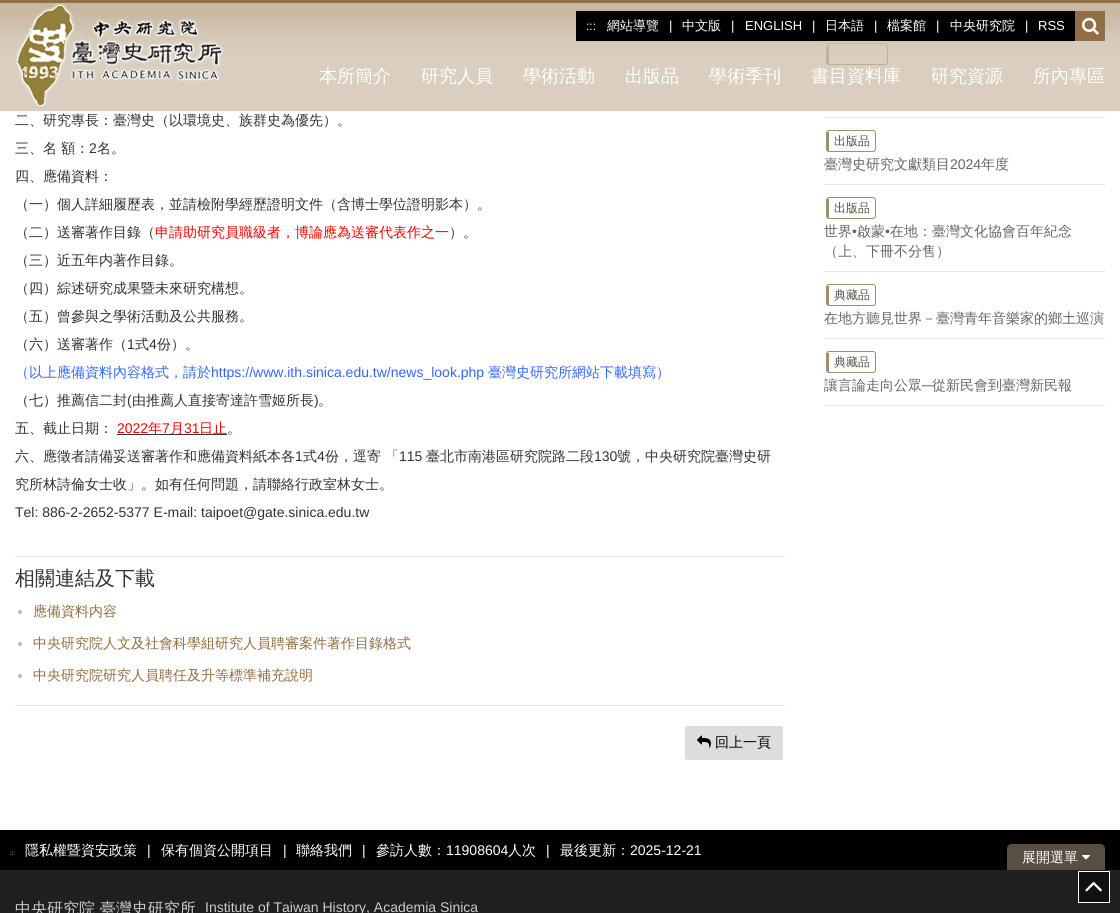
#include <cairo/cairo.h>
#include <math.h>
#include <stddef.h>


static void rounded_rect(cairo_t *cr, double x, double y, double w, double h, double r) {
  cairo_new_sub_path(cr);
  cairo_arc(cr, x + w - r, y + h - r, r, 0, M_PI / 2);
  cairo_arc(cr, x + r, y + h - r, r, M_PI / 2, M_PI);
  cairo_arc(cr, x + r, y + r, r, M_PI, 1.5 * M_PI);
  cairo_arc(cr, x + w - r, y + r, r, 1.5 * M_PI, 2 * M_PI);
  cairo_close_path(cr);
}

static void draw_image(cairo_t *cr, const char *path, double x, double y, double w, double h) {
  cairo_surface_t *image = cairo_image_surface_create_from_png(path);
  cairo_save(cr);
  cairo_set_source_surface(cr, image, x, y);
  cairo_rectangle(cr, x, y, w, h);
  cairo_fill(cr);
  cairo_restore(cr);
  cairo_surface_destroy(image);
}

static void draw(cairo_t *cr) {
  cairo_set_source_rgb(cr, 1, 1, 1);
  cairo_paint(cr);
  rounded_rect(cr, 826.5, 43.5, 61, 21, 2.5);
  cairo_set_source_rgb(cr, 158 / 255.0, 144 / 255.0, 106 / 255.0);
  cairo_set_line_width(cr, 1);
  cairo_stroke(cr);
  cairo_rectangle(cr, 827, 45, 2, 19);
  cairo_fill(cr);
  draw_image(cr, "images/1.png", 0, 3, 1120, 60);
  cairo_set_source_rgb(cr, 145 / 255.0, 110 / 255.0, 67 / 255.0);
  cairo_rectangle(cr, 0, 0, 1120, 3);
  cairo_fill(cr);
  cairo_set_source_rgba(cr, 201 / 255.0, 186 / 255.0, 165 / 255.0, 0.7);
  cairo_rectangle(cr, 0, 3, 1120, 108);
  cairo_fill(cr);
  draw_image(cr, "images/2.png", 15, 3, 209, 105);
  cairo_set_source_rgb(cr, 0, 0, 0);
  cairo_rectangle(cr, 576, 11, 499, 30);
  cairo_fill(cr);
  cairo_set_source_rgb(cr, 145 / 255.0, 110 / 255.0, 67 / 255.0);
  cairo_rectangle(cr, 1075, 11, 30, 30);
  cairo_fill(cr);
  draw_image(cr, "images/3.png", 1082, 17, 17, 18);
  cairo_set_source_rgb(cr, 50 / 255.0, 50 / 255.0, 55 / 255.0);
  cairo_rectangle(cr, 117, 434, 110, 1);
  cairo_fill(cr);
  cairo_set_source_rgb(cr, 229 / 255.0, 229 / 255.0, 229 / 255.0);
  cairo_rectangle(cr, 15, 556, 770, 1);
  cairo_fill(cr);
  cairo_set_source_rgb(cr, 187 / 255.0, 187 / 255.0, 187 / 255.0);
  cairo_arc(cr, 20, 612, 2, 0, 2 * M_PI);
  cairo_fill(cr);
  cairo_arc(cr, 20, 644, 2, 0, 2 * M_PI);
  cairo_fill(cr);
  cairo_arc(cr, 20, 676, 2, 0, 2 * M_PI);
  cairo_fill(cr);
  cairo_set_source_rgb(cr, 229 / 255.0, 229 / 255.0, 229 / 255.0);
  cairo_rectangle(cr, 15, 705, 770, 1);
  cairo_fill(cr);
  cairo_set_source_rgb(cr, 221 / 255.0, 221 / 255.0, 221 / 255.0);
  rounded_rect(cr, 685, 726, 98, 34, 2);
  cairo_fill(cr);
  draw_image(cr, "images/4.png", 697, 735, 14, 13);
  cairo_set_source_rgb(cr, 231 / 255.0, 230 / 255.0, 230 / 255.0);
  cairo_rectangle(cr, 824, 117, 281, 1);
  cairo_fill(cr);
  cairo_rectangle(cr, 824, 184, 281, 1);
  cairo_fill(cr);
  rounded_rect(cr, 826.5, 130.5, 49, 21, 2.5);
  cairo_set_source_rgb(cr, 158 / 255.0, 144 / 255.0, 106 / 255.0);
  cairo_stroke(cr);
  cairo_rectangle(cr, 827, 132, 2, 19);
  cairo_fill(cr);
  cairo_set_source_rgb(cr, 231 / 255.0, 230 / 255.0, 230 / 255.0);
  cairo_rectangle(cr, 824, 271, 281, 1);
  cairo_fill(cr);
  rounded_rect(cr, 826.5, 197.5, 49, 21, 2.5);
  cairo_set_source_rgb(cr, 158 / 255.0, 144 / 255.0, 106 / 255.0);
  cairo_stroke(cr);
  cairo_rectangle(cr, 827, 199, 2, 19);
  cairo_fill(cr);
  cairo_set_source_rgb(cr, 231 / 255.0, 230 / 255.0, 230 / 255.0);
  cairo_rectangle(cr, 824, 338, 281, 1);
  cairo_fill(cr);
  rounded_rect(cr, 826.5, 284.5, 49, 21, 2.5);
  cairo_set_source_rgb(cr, 158 / 255.0, 144 / 255.0, 106 / 255.0);
  cairo_stroke(cr);
  cairo_rectangle(cr, 827, 286, 2, 19);
  cairo_fill(cr);
  cairo_set_source_rgb(cr, 231 / 255.0, 230 / 255.0, 230 / 255.0);
  cairo_rectangle(cr, 824, 405, 281, 1);
  cairo_fill(cr);
  rounded_rect(cr, 826.5, 351.5, 49, 21, 2.5);
  cairo_set_source_rgb(cr, 158 / 255.0, 144 / 255.0, 106 / 255.0);
  cairo_stroke(cr);
  cairo_rectangle(cr, 827, 353, 2, 19);
  cairo_fill(cr);
  cairo_set_source_rgb(cr, 0, 0, 0);
  cairo_rectangle(cr, 0, 830, 1120, 40);
  cairo_fill(cr);
  cairo_set_source_rgb(cr, 88 / 255.0, 78 / 255.0, 66 / 255.0);
  cairo_new_path(cr);
  cairo_move_to(cr, 1012, 844);
  cairo_line_to(cr, 1100, 844);
  cairo_curve_to(cr, 1103, 844, 1105, 846, 1105, 849);
  cairo_line_to(cr, 1105, 870);
  cairo_line_to(cr, 1007, 870);
  cairo_line_to(cr, 1007, 849);
  cairo_curve_to(cr, 1007, 846, 1009, 844, 1012, 844);
  cairo_close_path(cr);
  cairo_fill(cr);
  draw_image(cr, "images/5.png", 1082, 855, 8, 5);
  cairo_set_source_rgb(cr, 33 / 255.0, 30 / 255.0, 30 / 255.0);
  cairo_rectangle(cr, 0, 870, 1120, 43);
  cairo_fill(cr);
  cairo_set_source_rgb(cr, 17 / 255.0, 15 / 255.0, 15 / 255.0);
  cairo_rectangle(cr, 1078.5, 871.5, 31, 31);
  cairo_fill_preserve(cr);
  cairo_set_source_rgb(cr, 1, 1, 1);
  cairo_stroke(cr);
  draw_image(cr, "images/6.png", 1085, 881, 17, 11);
  cairo_select_font_face(cr, "Liberation Sans", CAIRO_FONT_SLANT_NORMAL, CAIRO_FONT_WEIGHT_NORMAL);
  cairo_set_font_size(cr, 12);
  cairo_move_to(cr, 586, 30);
  cairo_show_text(cr, ":::");
  cairo_select_font_face(cr, "WenQuanYi Zen Hei Medium", CAIRO_FONT_SLANT_NORMAL, CAIRO_FONT_WEIGHT_NORMAL);
  cairo_set_font_size(cr, 13);
  cairo_move_to(cr, 607, 30);
  cairo_show_text(cr, "網站導覽");
  cairo_select_font_face(cr, "Liberation Sans", CAIRO_FONT_SLANT_NORMAL, CAIRO_FONT_WEIGHT_NORMAL);
  cairo_move_to(cr, 669, 30);
  cairo_show_text(cr, "|");
  cairo_select_font_face(cr, "WenQuanYi Zen Hei Medium", CAIRO_FONT_SLANT_NORMAL, CAIRO_FONT_WEIGHT_NORMAL);
  cairo_move_to(cr, 682, 30);
  cairo_show_text(cr, "中文版");
  cairo_select_font_face(cr, "Liberation Sans", CAIRO_FONT_SLANT_NORMAL, CAIRO_FONT_WEIGHT_NORMAL);
  cairo_move_to(cr, 731, 30);
  cairo_show_text(cr, "|");
  cairo_move_to(cr, 745, 30);
  cairo_show_text(cr, "ENGLISH");
  cairo_move_to(cr, 812, 30);
  cairo_show_text(cr, "|");
  cairo_select_font_face(cr, "WenQuanYi Zen Hei Medium", CAIRO_FONT_SLANT_NORMAL, CAIRO_FONT_WEIGHT_NORMAL);
  cairo_move_to(cr, 825, 30);
  cairo_show_text(cr, "日本語");
  cairo_select_font_face(cr, "Liberation Sans", CAIRO_FONT_SLANT_NORMAL, CAIRO_FONT_WEIGHT_NORMAL);
  cairo_move_to(cr, 874, 30);
  cairo_show_text(cr, "|");
  cairo_select_font_face(cr, "WenQuanYi Zen Hei Medium", CAIRO_FONT_SLANT_NORMAL, CAIRO_FONT_WEIGHT_NORMAL);
  cairo_move_to(cr, 887, 30);
  cairo_show_text(cr, "檔案館");
  cairo_select_font_face(cr, "Liberation Sans", CAIRO_FONT_SLANT_NORMAL, CAIRO_FONT_WEIGHT_NORMAL);
  cairo_move_to(cr, 936, 30);
  cairo_show_text(cr, "|");
  cairo_select_font_face(cr, "WenQuanYi Zen Hei Medium", CAIRO_FONT_SLANT_NORMAL, CAIRO_FONT_WEIGHT_NORMAL);
  cairo_move_to(cr, 950, 30);
  cairo_show_text(cr, "中央研究院");
  cairo_select_font_face(cr, "Liberation Sans", CAIRO_FONT_SLANT_NORMAL, CAIRO_FONT_WEIGHT_NORMAL);
  cairo_move_to(cr, 1025, 30);
  cairo_show_text(cr, "|");
  cairo_move_to(cr, 1038, 30);
  cairo_show_text(cr, "RSS");
  cairo_select_font_face(cr, "WenQuanYi Zen Hei Medium", CAIRO_FONT_SLANT_NORMAL, CAIRO_FONT_WEIGHT_NORMAL);
  cairo_set_font_size(cr, 18);
  cairo_move_to(cr, 319, 82);
  cairo_show_text(cr, "本所簡介");
  cairo_move_to(cr, 421, 82);
  cairo_show_text(cr, "研究人員");
  cairo_move_to(cr, 523, 82);
  cairo_show_text(cr, "學術活動");
  cairo_move_to(cr, 625, 82);
  cairo_show_text(cr, "出版品");
  cairo_move_to(cr, 709, 82);
  cairo_show_text(cr, "學術季刊");
  cairo_move_to(cr, 811, 82);
  cairo_show_text(cr, "書目資料庫");
  cairo_move_to(cr, 931, 82);
  cairo_show_text(cr, "研究資源");
  cairo_move_to(cr, 1033, 82);
  cairo_show_text(cr, "所內專區");
  cairo_set_font_size(cr, 14);
  cairo_set_source_rgb(cr, 50 / 255.0, 50 / 255.0, 55 / 255.0);
  cairo_move_to(cr, 15, 125);
  cairo_show_text(cr, "二、研究專長：臺灣史（以環境史、族群史為優先）。");
  cairo_move_to(cr, 15, 153);
  cairo_show_text(cr, "三、名 額：");
  cairo_select_font_face(cr, "Liberation Sans", CAIRO_FONT_SLANT_NORMAL, CAIRO_FONT_WEIGHT_NORMAL);
  cairo_move_to(cr, 89, 153);
  cairo_show_text(cr, "2");
  cairo_select_font_face(cr, "WenQuanYi Zen Hei Medium", CAIRO_FONT_SLANT_NORMAL, CAIRO_FONT_WEIGHT_NORMAL);
  cairo_move_to(cr, 97, 153);
  cairo_show_text(cr, "名。");
  cairo_move_to(cr, 15, 181);
  cairo_show_text(cr, "四、應備資料：");
  cairo_move_to(cr, 15, 209);
  cairo_show_text(cr, "（一）個人詳細履歷表，並請檢附學經歷證明文件（含博士學位證明影本）。");
  cairo_move_to(cr, 15, 237);
  cairo_show_text(cr, "（二）送審著作目錄（");
  cairo_set_source_rgb(cr, 1, 0, 0);
  cairo_move_to(cr, 155, 237);
  cairo_show_text(cr, "申請助研究員職級者，博論應為送審代表作之一");
  cairo_set_source_rgb(cr, 50 / 255.0, 50 / 255.0, 55 / 255.0);
  cairo_move_to(cr, 449, 237);
  cairo_show_text(cr, "）。");
  cairo_move_to(cr, 15, 265);
  cairo_show_text(cr, "（三）近五年内著作目錄。");
  cairo_move_to(cr, 15, 293);
  cairo_show_text(cr, "（四）綜述研究成果暨未來研究構想。");
  cairo_move_to(cr, 15, 321);
  cairo_show_text(cr, "（五）曾參與之學術活動及公共服務。");
  cairo_move_to(cr, 15, 349);
  cairo_show_text(cr, "（六）送審著作（");
  cairo_select_font_face(cr, "Liberation Sans", CAIRO_FONT_SLANT_NORMAL, CAIRO_FONT_WEIGHT_NORMAL);
  cairo_move_to(cr, 127, 349);
  cairo_show_text(cr, "1");
  cairo_select_font_face(cr, "WenQuanYi Zen Hei Medium", CAIRO_FONT_SLANT_NORMAL, CAIRO_FONT_WEIGHT_NORMAL);
  cairo_move_to(cr, 135, 349);
  cairo_show_text(cr, "式");
  cairo_select_font_face(cr, "Liberation Sans", CAIRO_FONT_SLANT_NORMAL, CAIRO_FONT_WEIGHT_NORMAL);
  cairo_move_to(cr, 149, 349);
  cairo_show_text(cr, "4");
  cairo_select_font_face(cr, "WenQuanYi Zen Hei Medium", CAIRO_FONT_SLANT_NORMAL, CAIRO_FONT_WEIGHT_NORMAL);
  cairo_move_to(cr, 157, 349);
  cairo_show_text(cr, "份）。");
  cairo_set_source_rgb(cr, 51 / 255.0, 102 / 255.0, 1);
  cairo_move_to(cr, 15, 377);
  cairo_show_text(cr, "（以上應備資料內容格式，請於");
  cairo_select_font_face(cr, "Liberation Sans", CAIRO_FONT_SLANT_NORMAL, CAIRO_FONT_WEIGHT_NORMAL);
  cairo_move_to(cr, 211, 377);
  cairo_show_text(cr, "https://www.ith.sinica.edu.tw/news_look.php");
  cairo_select_font_face(cr, "WenQuanYi Zen Hei Medium", CAIRO_FONT_SLANT_NORMAL, CAIRO_FONT_WEIGHT_NORMAL);
  cairo_move_to(cr, 488, 377);
  cairo_show_text(cr, "臺灣史研究所網站下載填寫）");
  cairo_set_source_rgb(cr, 50 / 255.0, 50 / 255.0, 55 / 255.0);
  cairo_move_to(cr, 15, 405);
  cairo_show_text(cr, "（七）推薦信二封");
  cairo_select_font_face(cr, "Liberation Sans", CAIRO_FONT_SLANT_NORMAL, CAIRO_FONT_WEIGHT_NORMAL);
  cairo_move_to(cr, 127, 405);
  cairo_show_text(cr, "(");
  cairo_select_font_face(cr, "WenQuanYi Zen Hei Medium", CAIRO_FONT_SLANT_NORMAL, CAIRO_FONT_WEIGHT_NORMAL);
  cairo_move_to(cr, 132, 405);
  cairo_show_text(cr, "由推薦人直接寄達許雪姬所長");
  cairo_select_font_face(cr, "Liberation Sans", CAIRO_FONT_SLANT_NORMAL, CAIRO_FONT_WEIGHT_NORMAL);
  cairo_move_to(cr, 314, 405);
  cairo_show_text(cr, ")");
  cairo_select_font_face(cr, "WenQuanYi Zen Hei Medium", CAIRO_FONT_SLANT_NORMAL, CAIRO_FONT_WEIGHT_NORMAL);
  cairo_move_to(cr, 318, 405);
  cairo_show_text(cr, "。");
  cairo_move_to(cr, 15, 433);
  cairo_show_text(cr, "五、截止日期：");
  cairo_select_font_face(cr, "Liberation Sans", CAIRO_FONT_SLANT_NORMAL, CAIRO_FONT_WEIGHT_NORMAL);
  cairo_set_source_rgb(cr, 1, 0, 0);
  cairo_move_to(cr, 117, 433);
  cairo_show_text(cr, "2022");
  cairo_select_font_face(cr, "WenQuanYi Zen Hei Medium", CAIRO_FONT_SLANT_NORMAL, CAIRO_FONT_WEIGHT_NORMAL);
  cairo_move_to(cr, 148, 433);
  cairo_show_text(cr, "年");
  cairo_select_font_face(cr, "Liberation Sans", CAIRO_FONT_SLANT_NORMAL, CAIRO_FONT_WEIGHT_NORMAL);
  cairo_move_to(cr, 162, 433);
  cairo_show_text(cr, "7");
  cairo_select_font_face(cr, "WenQuanYi Zen Hei Medium", CAIRO_FONT_SLANT_NORMAL, CAIRO_FONT_WEIGHT_NORMAL);
  cairo_move_to(cr, 170, 433);
  cairo_show_text(cr, "月");
  cairo_select_font_face(cr, "Liberation Sans", CAIRO_FONT_SLANT_NORMAL, CAIRO_FONT_WEIGHT_NORMAL);
  cairo_move_to(cr, 184, 433);
  cairo_show_text(cr, "31");
  cairo_select_font_face(cr, "WenQuanYi Zen Hei Medium", CAIRO_FONT_SLANT_NORMAL, CAIRO_FONT_WEIGHT_NORMAL);
  cairo_move_to(cr, 199, 433);
  cairo_show_text(cr, "日止");
  cairo_set_source_rgb(cr, 50 / 255.0, 50 / 255.0, 55 / 255.0);
  cairo_move_to(cr, 227, 433);
  cairo_show_text(cr, "。");
  cairo_move_to(cr, 15, 461);
  cairo_show_text(cr, "六、應徵者請備妥送審著作和應備資料紙本各");
  cairo_select_font_face(cr, "Liberation Sans", CAIRO_FONT_SLANT_NORMAL, CAIRO_FONT_WEIGHT_NORMAL);
  cairo_move_to(cr, 295, 461);
  cairo_show_text(cr, "1");
  cairo_select_font_face(cr, "WenQuanYi Zen Hei Medium", CAIRO_FONT_SLANT_NORMAL, CAIRO_FONT_WEIGHT_NORMAL);
  cairo_move_to(cr, 303, 461);
  cairo_show_text(cr, "式");
  cairo_select_font_face(cr, "Liberation Sans", CAIRO_FONT_SLANT_NORMAL, CAIRO_FONT_WEIGHT_NORMAL);
  cairo_move_to(cr, 317, 461);
  cairo_show_text(cr, "4");
  cairo_select_font_face(cr, "WenQuanYi Zen Hei Medium", CAIRO_FONT_SLANT_NORMAL, CAIRO_FONT_WEIGHT_NORMAL);
  cairo_move_to(cr, 325, 461);
  cairo_show_text(cr, "份，逕寄 「");
  cairo_select_font_face(cr, "Liberation Sans", CAIRO_FONT_SLANT_NORMAL, CAIRO_FONT_WEIGHT_NORMAL);
  cairo_move_to(cr, 399, 461);
  cairo_show_text(cr, "115");
  cairo_select_font_face(cr, "WenQuanYi Zen Hei Medium", CAIRO_FONT_SLANT_NORMAL, CAIRO_FONT_WEIGHT_NORMAL);
  cairo_move_to(cr, 426, 461);
  cairo_show_text(cr, "臺北市南港區研究院路二段");
  cairo_select_font_face(cr, "Liberation Sans", CAIRO_FONT_SLANT_NORMAL, CAIRO_FONT_WEIGHT_NORMAL);
  cairo_move_to(cr, 594, 461);
  cairo_show_text(cr, "130");
  cairo_select_font_face(cr, "WenQuanYi Zen Hei Medium", CAIRO_FONT_SLANT_NORMAL, CAIRO_FONT_WEIGHT_NORMAL);
  cairo_move_to(cr, 617, 461);
  cairo_show_text(cr, "號，中央研究院臺灣史研");
  cairo_move_to(cr, 15, 489);
  cairo_show_text(cr, "究所林詩倫女士收」。如有任何問題，請聯絡行政室林女士。");
  cairo_select_font_face(cr, "Liberation Sans", CAIRO_FONT_SLANT_NORMAL, CAIRO_FONT_WEIGHT_NORMAL);
  cairo_move_to(cr, 15, 517);
  cairo_show_text(cr, "Tel: 886-2-2652-5377 E-mail: taipoet@gate.sinica.edu.tw");
  cairo_select_font_face(cr, "WenQuanYi Zen Hei Medium", CAIRO_FONT_SLANT_NORMAL, CAIRO_FONT_WEIGHT_NORMAL);
  cairo_set_font_size(cr, 20);
  cairo_move_to(cr, 15, 585);
  cairo_show_text(cr, "相關連結及下載");
  cairo_set_font_size(cr, 14);
  cairo_set_source_rgb(cr, 145 / 255.0, 110 / 255.0, 67 / 255.0);
  cairo_move_to(cr, 33, 616);
  cairo_show_text(cr, "應備資料内容");
  cairo_move_to(cr, 33, 648);
  cairo_show_text(cr, "中央研究院人文及社會科學組研究人員聘審案件著作目錄格式");
  cairo_move_to(cr, 33, 680);
  cairo_show_text(cr, "中央研究院研究人員聘任及升等標準補充說明");
  cairo_set_source_rgb(cr, 0, 0, 0);
  cairo_move_to(cr, 715, 747);
  cairo_show_text(cr, "回上一頁");
  cairo_set_font_size(cr, 12);
  cairo_set_source_rgb(cr, 88 / 255.0, 78 / 255.0, 66 / 255.0);
  cairo_move_to(cr, 834, 145);
  cairo_show_text(cr, "出版品");
  cairo_set_font_size(cr, 14);
  cairo_set_source_rgb(cr, 102 / 255.0, 102 / 255.0, 102 / 255.0);
  cairo_move_to(cr, 824, 169);
  cairo_show_text(cr, "臺灣史研究文獻類目");
  cairo_select_font_face(cr, "Liberation Sans", CAIRO_FONT_SLANT_NORMAL, CAIRO_FONT_WEIGHT_NORMAL);
  cairo_move_to(cr, 950, 169);
  cairo_show_text(cr, "2024");
  cairo_select_font_face(cr, "WenQuanYi Zen Hei Medium", CAIRO_FONT_SLANT_NORMAL, CAIRO_FONT_WEIGHT_NORMAL);
  cairo_move_to(cr, 981, 169);
  cairo_show_text(cr, "年度");
  cairo_set_font_size(cr, 12);
  cairo_set_source_rgb(cr, 88 / 255.0, 78 / 255.0, 66 / 255.0);
  cairo_move_to(cr, 834, 212);
  cairo_show_text(cr, "出版品");
  cairo_set_font_size(cr, 14);
  cairo_set_source_rgb(cr, 102 / 255.0, 102 / 255.0, 102 / 255.0);
  cairo_move_to(cr, 824, 236);
  cairo_show_text(cr, "世界");
  cairo_select_font_face(cr, "Liberation Sans", CAIRO_FONT_SLANT_NORMAL, CAIRO_FONT_WEIGHT_NORMAL);
  cairo_move_to(cr, 852, 236);
  cairo_show_text(cr, "•");
  cairo_select_font_face(cr, "WenQuanYi Zen Hei Medium", CAIRO_FONT_SLANT_NORMAL, CAIRO_FONT_WEIGHT_NORMAL);
  cairo_move_to(cr, 857, 236);
  cairo_show_text(cr, "啟蒙");
  cairo_select_font_face(cr, "Liberation Sans", CAIRO_FONT_SLANT_NORMAL, CAIRO_FONT_WEIGHT_NORMAL);
  cairo_move_to(cr, 885, 236);
  cairo_show_text(cr, "•");
  cairo_select_font_face(cr, "WenQuanYi Zen Hei Medium", CAIRO_FONT_SLANT_NORMAL, CAIRO_FONT_WEIGHT_NORMAL);
  cairo_move_to(cr, 890, 236);
  cairo_show_text(cr, "在地：臺灣文化協會百年紀念");
  cairo_move_to(cr, 824, 256);
  cairo_show_text(cr, "（上、下冊不分售）");
  cairo_set_font_size(cr, 12);
  cairo_set_source_rgb(cr, 88 / 255.0, 78 / 255.0, 66 / 255.0);
  cairo_move_to(cr, 834, 299);
  cairo_show_text(cr, "典藏品");
  cairo_set_font_size(cr, 14);
  cairo_set_source_rgb(cr, 102 / 255.0, 102 / 255.0, 102 / 255.0);
  cairo_move_to(cr, 824, 323);
  cairo_show_text(cr, "在地方聽見世界－臺灣青年音樂家的鄉土巡演");
  cairo_set_font_size(cr, 12);
  cairo_set_source_rgb(cr, 88 / 255.0, 78 / 255.0, 66 / 255.0);
  cairo_move_to(cr, 834, 366);
  cairo_show_text(cr, "典藏品");
  cairo_set_font_size(cr, 14);
  cairo_set_source_rgb(cr, 102 / 255.0, 102 / 255.0, 102 / 255.0);
  cairo_move_to(cr, 824, 390);
  cairo_show_text(cr, "讓言論走向公眾");
  cairo_select_font_face(cr, "Liberation Sans", CAIRO_FONT_SLANT_NORMAL, CAIRO_FONT_WEIGHT_NORMAL);
  cairo_move_to(cr, 922, 390);
  cairo_show_text(cr, "─");
  cairo_select_font_face(cr, "WenQuanYi Zen Hei Medium", CAIRO_FONT_SLANT_NORMAL, CAIRO_FONT_WEIGHT_NORMAL);
  cairo_move_to(cr, 932, 390);
  cairo_show_text(cr, "從新民會到臺灣新民報");
  cairo_select_font_face(cr, "Liberation Sans", CAIRO_FONT_SLANT_NORMAL, CAIRO_FONT_WEIGHT_NORMAL);
  cairo_set_font_size(cr, 6);
  cairo_set_source_rgb(cr, 1, 1, 1);
  cairo_move_to(cr, 10, 855);
  cairo_show_text(cr, ":::");
  cairo_select_font_face(cr, "WenQuanYi Zen Hei Medium", CAIRO_FONT_SLANT_NORMAL, CAIRO_FONT_WEIGHT_NORMAL);
  cairo_set_font_size(cr, 14);
  cairo_move_to(cr, 25, 855);
  cairo_show_text(cr, "隱私權暨資安政策");
  cairo_select_font_face(cr, "Liberation Sans", CAIRO_FONT_SLANT_NORMAL, CAIRO_FONT_WEIGHT_NORMAL);
  cairo_move_to(cr, 147, 855);
  cairo_show_text(cr, "|");
  cairo_select_font_face(cr, "WenQuanYi Zen Hei Medium", CAIRO_FONT_SLANT_NORMAL, CAIRO_FONT_WEIGHT_NORMAL);
  cairo_move_to(cr, 161, 855);
  cairo_show_text(cr, "保有個資公開項目");
  cairo_select_font_face(cr, "Liberation Sans", CAIRO_FONT_SLANT_NORMAL, CAIRO_FONT_WEIGHT_NORMAL);
  cairo_move_to(cr, 283, 855);
  cairo_show_text(cr, "|");
  cairo_select_font_face(cr, "WenQuanYi Zen Hei Medium", CAIRO_FONT_SLANT_NORMAL, CAIRO_FONT_WEIGHT_NORMAL);
  cairo_move_to(cr, 296, 855);
  cairo_show_text(cr, "聯絡我們");
  cairo_select_font_face(cr, "Liberation Sans", CAIRO_FONT_SLANT_NORMAL, CAIRO_FONT_WEIGHT_NORMAL);
  cairo_move_to(cr, 362, 855);
  cairo_show_text(cr, "|");
  cairo_select_font_face(cr, "WenQuanYi Zen Hei Medium", CAIRO_FONT_SLANT_NORMAL, CAIRO_FONT_WEIGHT_NORMAL);
  cairo_move_to(cr, 376, 855);
  cairo_show_text(cr, "參訪人數：");
  cairo_select_font_face(cr, "Liberation Sans", CAIRO_FONT_SLANT_NORMAL, CAIRO_FONT_WEIGHT_NORMAL);
  cairo_move_to(cr, 446, 855);
  cairo_show_text(cr, "11908604");
  cairo_select_font_face(cr, "WenQuanYi Zen Hei Medium", CAIRO_FONT_SLANT_NORMAL, CAIRO_FONT_WEIGHT_NORMAL);
  cairo_move_to(cr, 508, 855);
  cairo_show_text(cr, "人次");
  cairo_select_font_face(cr, "Liberation Sans", CAIRO_FONT_SLANT_NORMAL, CAIRO_FONT_WEIGHT_NORMAL);
  cairo_move_to(cr, 546, 855);
  cairo_show_text(cr, "|");
  cairo_select_font_face(cr, "WenQuanYi Zen Hei Medium", CAIRO_FONT_SLANT_NORMAL, CAIRO_FONT_WEIGHT_NORMAL);
  cairo_move_to(cr, 560, 855);
  cairo_show_text(cr, "最後更新：");
  cairo_select_font_face(cr, "Liberation Sans", CAIRO_FONT_SLANT_NORMAL, CAIRO_FONT_WEIGHT_NORMAL);
  cairo_move_to(cr, 630, 855);
  cairo_show_text(cr, "2025-12-21");
  cairo_select_font_face(cr, "WenQuanYi Zen Hei Medium", CAIRO_FONT_SLANT_NORMAL, CAIRO_FONT_WEIGHT_NORMAL);
  cairo_move_to(cr, 1022, 862);
  cairo_show_text(cr, "展開選單");
  cairo_set_font_size(cr, 16);
  cairo_set_source_rgb(cr, 204 / 255.0, 204 / 255.0, 204 / 255.0);
  cairo_move_to(cr, 15, 914);
  cairo_show_text(cr, "中央研究院 臺灣史研究所");
  cairo_select_font_face(cr, "Liberation Sans", CAIRO_FONT_SLANT_NORMAL, CAIRO_FONT_WEIGHT_NORMAL);
  cairo_set_font_size(cr, 14);
  cairo_move_to(cr, 205, 912);
  cairo_show_text(cr, "Institute of Taiwan History, Academia Sinica");
}

int main(void) {
  cairo_surface_t *surface = cairo_image_surface_create(CAIRO_FORMAT_RGB24, 1120, 913);
  cairo_t *cr = cairo_create(surface);
  cairo_font_options_t *options = cairo_font_options_create();
  cairo_font_options_set_hint_metrics(options, CAIRO_HINT_METRICS_OFF);
  cairo_font_options_set_hint_style(options, CAIRO_HINT_STYLE_NONE);
  cairo_set_font_options(cr, options);
  cairo_set_miter_limit(cr, 4);
  draw(cr);
  cairo_surface_write_to_png(surface, "out.png");
  cairo_font_options_destroy(options);
  cairo_destroy(cr);
  cairo_surface_destroy(surface);
  return 0;
}
